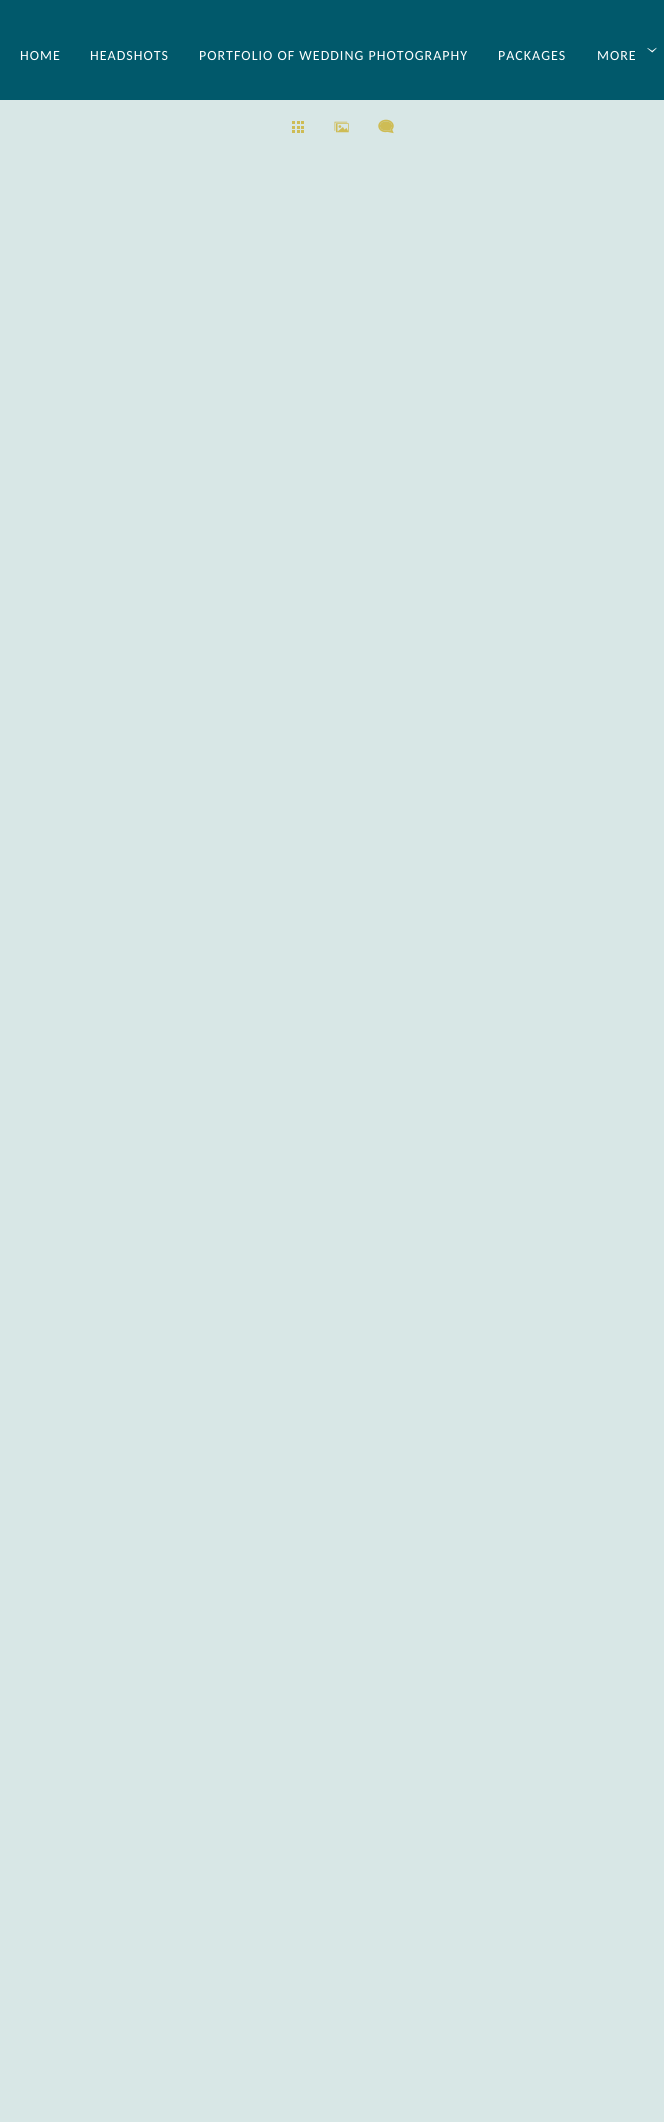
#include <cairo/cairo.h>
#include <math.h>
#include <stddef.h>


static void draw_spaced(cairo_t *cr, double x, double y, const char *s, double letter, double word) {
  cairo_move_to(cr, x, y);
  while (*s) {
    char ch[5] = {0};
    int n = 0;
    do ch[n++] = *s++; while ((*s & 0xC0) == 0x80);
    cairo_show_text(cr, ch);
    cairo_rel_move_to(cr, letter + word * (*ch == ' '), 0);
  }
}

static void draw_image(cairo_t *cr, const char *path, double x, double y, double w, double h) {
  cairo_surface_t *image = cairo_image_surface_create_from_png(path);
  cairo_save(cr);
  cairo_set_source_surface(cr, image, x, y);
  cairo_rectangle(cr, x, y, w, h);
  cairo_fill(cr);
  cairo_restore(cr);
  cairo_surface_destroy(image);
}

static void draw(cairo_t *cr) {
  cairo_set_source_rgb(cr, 216 / 255.0, 231 / 255.0, 230 / 255.0);
  cairo_paint(cr);
  cairo_set_source_rgb(cr, 1 / 255.0, 89 / 255.0, 107 / 255.0);
  cairo_rectangle(cr, 0, 0, 664, 100);
  cairo_fill(cr);
  draw_image(cr, "images/1.png", 647, 47, 10, 6);
  draw_image(cr, "images/2.png", 292, 121, 12, 12);
  draw_image(cr, "images/3.png", 334, 121, 15, 12);
  draw_image(cr, "images/4.png", 378, 119, 16, 15);
  cairo_select_font_face(cr, "Carlito", CAIRO_FONT_SLANT_NORMAL, CAIRO_FONT_WEIGHT_NORMAL);
  cairo_set_font_size(cr, 14);
  cairo_set_source_rgb(cr, 1, 1, 1);
  draw_spaced(cr, 20, 60, "HOME", 1, 0);
  draw_spaced(cr, 90, 60, "HEADSHOTS", 1, 0);
  draw_spaced(cr, 199, 60, "PORTFOLIO OF WEDDING PHOTOGRAPHY", 1, 0);
  draw_spaced(cr, 498, 60, "PACKAGES", 1, 0);
  draw_spaced(cr, 597, 60, "MORE", 1, 0);
}

int main(void) {
  cairo_surface_t *surface = cairo_image_surface_create(CAIRO_FORMAT_RGB24, 664, 2122);
  cairo_t *cr = cairo_create(surface);
  cairo_font_options_t *options = cairo_font_options_create();
  cairo_font_options_set_hint_metrics(options, CAIRO_HINT_METRICS_OFF);
  cairo_font_options_set_hint_style(options, CAIRO_HINT_STYLE_NONE);
  cairo_set_font_options(cr, options);
  cairo_set_miter_limit(cr, 4);
  draw(cr);
  cairo_surface_write_to_png(surface, "out.png");
  cairo_font_options_destroy(options);
  cairo_destroy(cr);
  cairo_surface_destroy(surface);
  return 0;
}
